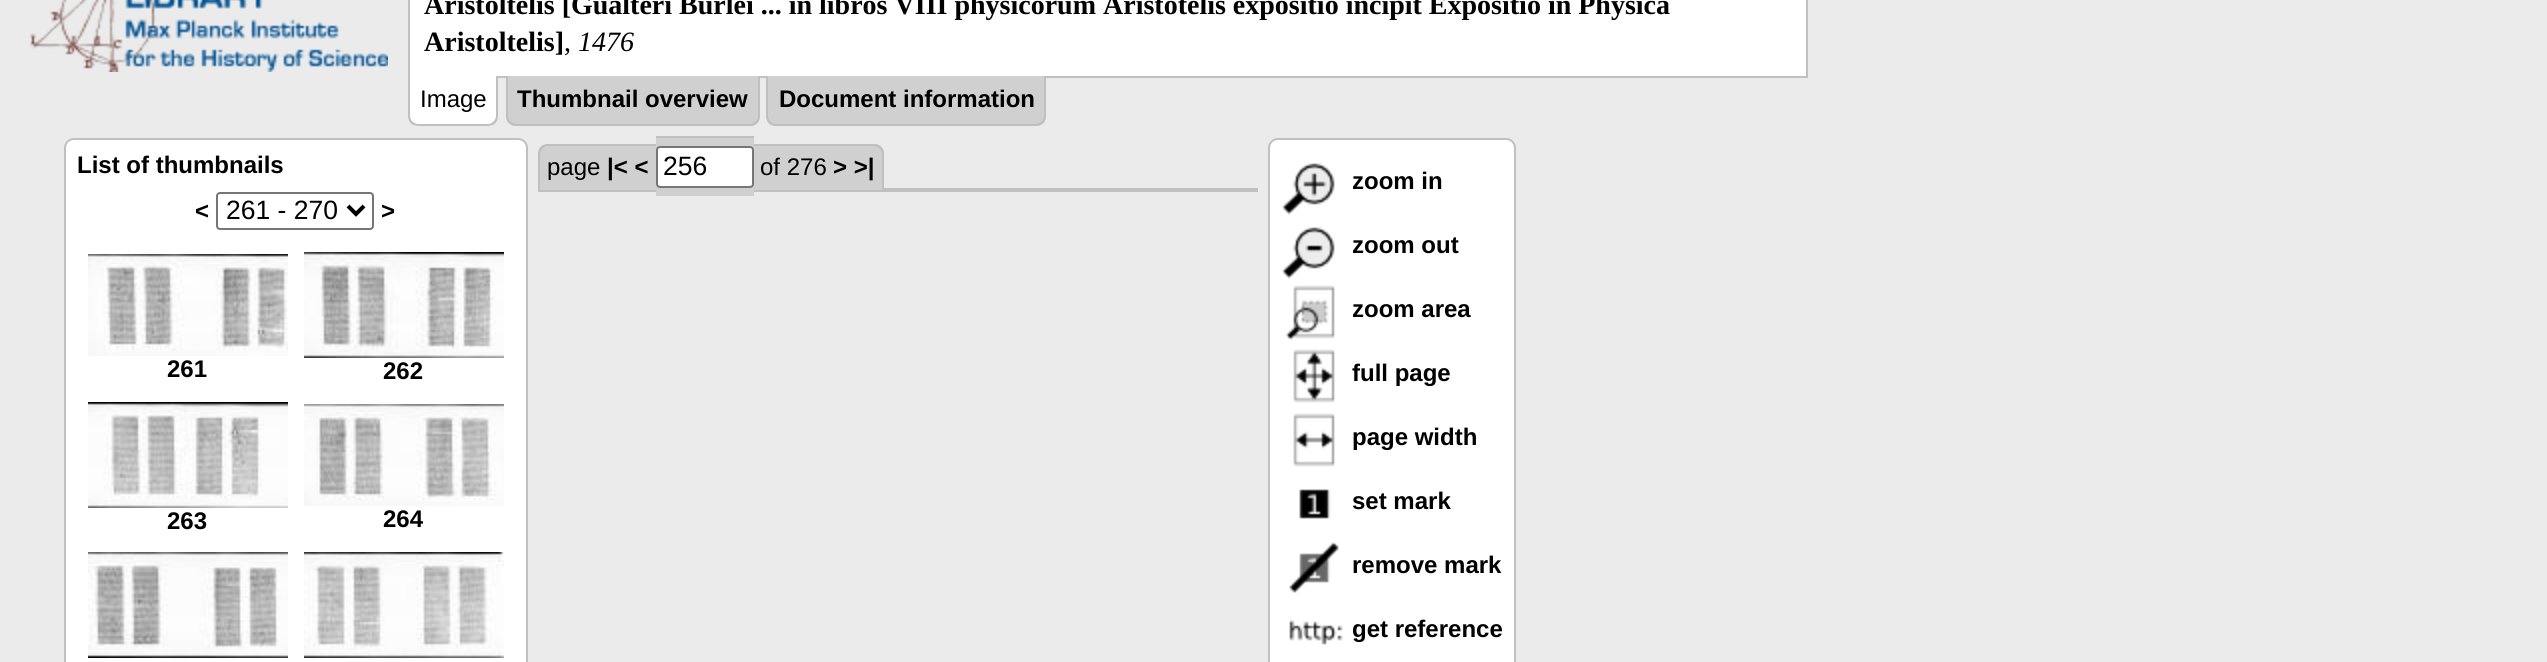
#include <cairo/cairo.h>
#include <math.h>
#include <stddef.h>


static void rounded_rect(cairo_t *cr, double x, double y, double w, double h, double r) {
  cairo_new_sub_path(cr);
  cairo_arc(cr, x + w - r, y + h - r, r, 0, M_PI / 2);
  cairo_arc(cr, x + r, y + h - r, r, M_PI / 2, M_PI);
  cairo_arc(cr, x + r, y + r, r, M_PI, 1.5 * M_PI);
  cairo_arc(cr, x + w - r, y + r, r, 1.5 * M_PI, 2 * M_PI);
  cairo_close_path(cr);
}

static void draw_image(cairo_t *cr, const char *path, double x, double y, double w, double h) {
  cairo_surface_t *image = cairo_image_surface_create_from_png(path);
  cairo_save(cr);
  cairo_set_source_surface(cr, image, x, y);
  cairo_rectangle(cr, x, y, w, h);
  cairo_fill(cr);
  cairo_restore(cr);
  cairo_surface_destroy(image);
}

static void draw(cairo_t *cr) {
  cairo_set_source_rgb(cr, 235 / 255.0, 235 / 255.0, 235 / 255.0);
  cairo_paint(cr);
  draw_image(cr, "images/1.png", 30, 0, 358, 72);
  cairo_set_source_rgb(cr, 1, 1, 1);
  cairo_rectangle(cr, 409, -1, 1398, 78);
  cairo_fill_preserve(cr);
  cairo_set_source_rgb(cr, 192 / 255.0, 192 / 255.0, 192 / 255.0);
  cairo_stroke(cr);
  cairo_set_source_rgb(cr, 1, 1, 1);
  cairo_new_path(cr);
  cairo_move_to(cr, 408, 76);
  cairo_line_to(cr, 498, 76);
  cairo_line_to(cr, 498, 116);
  cairo_curve_to(cr, 498, 121.5, 493.5, 126, 488, 126);
  cairo_line_to(cr, 418, 126);
  cairo_curve_to(cr, 412.5, 126, 408, 121.5, 408, 116);
  cairo_close_path(cr);
  cairo_fill(cr);
  cairo_set_source_rgb(cr, 192 / 255.0, 192 / 255.0, 192 / 255.0);
  cairo_set_fill_rule(cr, CAIRO_FILL_RULE_EVEN_ODD);
  cairo_new_path(cr);
  cairo_move_to(cr, 408, 76);
  cairo_line_to(cr, 498, 76);
  cairo_line_to(cr, 498, 116);
  cairo_curve_to(cr, 498, 122, 494, 126, 488, 126);
  cairo_line_to(cr, 418, 126);
  cairo_curve_to(cr, 412, 126, 408, 122, 408, 116);
  cairo_close_path(cr);
  cairo_move_to(cr, 410, 76);
  cairo_line_to(cr, 496, 76);
  cairo_line_to(cr, 496, 116);
  cairo_curve_to(cr, 496, 120, 492, 124, 488, 124);
  cairo_line_to(cr, 418, 124);
  cairo_curve_to(cr, 414, 124, 410, 120, 410, 116);
  cairo_close_path(cr);
  cairo_fill(cr);
  cairo_set_source_rgb(cr, 208 / 255.0, 208 / 255.0, 208 / 255.0);
  cairo_new_path(cr);
  cairo_move_to(cr, 506, 76);
  cairo_line_to(cr, 760, 76);
  cairo_line_to(cr, 760, 116);
  cairo_curve_to(cr, 760, 121.5, 755.5, 126, 750, 126);
  cairo_line_to(cr, 516, 126);
  cairo_curve_to(cr, 510.5, 126, 506, 121.5, 506, 116);
  cairo_close_path(cr);
  cairo_fill(cr);
  cairo_set_source_rgb(cr, 192 / 255.0, 192 / 255.0, 192 / 255.0);
  cairo_new_path(cr);
  cairo_move_to(cr, 506, 76);
  cairo_line_to(cr, 760, 76);
  cairo_line_to(cr, 760, 116);
  cairo_curve_to(cr, 760, 122, 756, 126, 750, 126);
  cairo_line_to(cr, 516, 126);
  cairo_curve_to(cr, 510, 126, 506, 122, 506, 116);
  cairo_close_path(cr);
  cairo_move_to(cr, 508, 76);
  cairo_line_to(cr, 758, 76);
  cairo_line_to(cr, 758, 116);
  cairo_curve_to(cr, 758, 120, 754, 124, 750, 124);
  cairo_line_to(cr, 516, 124);
  cairo_curve_to(cr, 512, 124, 508, 120, 508, 116);
  cairo_close_path(cr);
  cairo_fill(cr);
  cairo_set_source_rgb(cr, 208 / 255.0, 208 / 255.0, 208 / 255.0);
  cairo_new_path(cr);
  cairo_move_to(cr, 766, 76);
  cairo_line_to(cr, 1046, 76);
  cairo_line_to(cr, 1046, 116);
  cairo_curve_to(cr, 1046, 121.5, 1041.5, 126, 1036, 126);
  cairo_line_to(cr, 776, 126);
  cairo_curve_to(cr, 770.5, 126, 766, 121.5, 766, 116);
  cairo_close_path(cr);
  cairo_fill(cr);
  cairo_set_source_rgb(cr, 192 / 255.0, 192 / 255.0, 192 / 255.0);
  cairo_new_path(cr);
  cairo_move_to(cr, 766, 76);
  cairo_line_to(cr, 1046, 76);
  cairo_line_to(cr, 1046, 116);
  cairo_curve_to(cr, 1046, 122, 1042, 126, 1036, 126);
  cairo_line_to(cr, 776, 126);
  cairo_curve_to(cr, 770, 126, 766, 122, 766, 116);
  cairo_close_path(cr);
  cairo_move_to(cr, 768, 76);
  cairo_line_to(cr, 1044, 76);
  cairo_line_to(cr, 1044, 116);
  cairo_curve_to(cr, 1044, 120, 1040, 124, 1036, 124);
  cairo_line_to(cr, 776, 124);
  cairo_curve_to(cr, 772, 124, 768, 120, 768, 116);
  cairo_close_path(cr);
  cairo_fill(cr);
  cairo_set_source_rgb(cr, 1, 1, 1);
  rounded_rect(cr, 65, 139, 462, 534, 9);
  cairo_fill_preserve(cr);
  cairo_set_source_rgb(cr, 192 / 255.0, 192 / 255.0, 192 / 255.0);
  cairo_stroke(cr);
  rounded_rect(cr, 217, 193, 156, 36, 3);
  cairo_set_source_rgb(cr, 118 / 255.0, 118 / 255.0, 118 / 255.0);
  cairo_stroke(cr);
  cairo_new_path(cr);
  cairo_move_to(cr, 348, 206);
  cairo_line_to(cr, 356, 214);
  cairo_line_to(cr, 364, 206);
  cairo_set_source_rgb(cr, 0, 0, 0);
  cairo_set_line_width(cr, 4);
  cairo_stroke(cr);
  draw_image(cr, "images/2.png", 88, 254, 200, 102);
  draw_image(cr, "images/3.png", 304, 252, 200, 106);
  draw_image(cr, "images/4.png", 88, 402, 200, 106);
  draw_image(cr, "images/5.png", 304, 404, 200, 102);
  draw_image(cr, "images/6.png", 88, 552, 200, 106);
  draw_image(cr, "images/7.png", 304, 552, 200, 106);
  cairo_set_source_rgb(cr, 192 / 255.0, 192 / 255.0, 192 / 255.0);
  cairo_rectangle(cr, 538, 188, 720, 4);
  cairo_fill(cr);
  cairo_set_source_rgb(cr, 208 / 255.0, 208 / 255.0, 208 / 255.0);
  cairo_new_path(cr);
  cairo_move_to(cr, 548, 144);
  cairo_line_to(cr, 608, 144);
  cairo_line_to(cr, 608, 190);
  cairo_line_to(cr, 538, 190);
  cairo_line_to(cr, 538, 154);
  cairo_curve_to(cr, 538, 148.5, 542.5, 144, 548, 144);
  cairo_close_path(cr);
  cairo_fill(cr);
  cairo_set_source_rgb(cr, 192 / 255.0, 192 / 255.0, 192 / 255.0);
  cairo_new_path(cr);
  cairo_move_to(cr, 548, 144);
  cairo_line_to(cr, 608, 144);
  cairo_line_to(cr, 608, 190);
  cairo_line_to(cr, 538, 190);
  cairo_line_to(cr, 538, 154);
  cairo_curve_to(cr, 538, 148, 542, 144, 548, 144);
  cairo_close_path(cr);
  cairo_move_to(cr, 548, 146);
  cairo_line_to(cr, 608, 146);
  cairo_line_to(cr, 608, 190);
  cairo_line_to(cr, 540, 190);
  cairo_line_to(cr, 540, 154);
  cairo_curve_to(cr, 540, 150, 544, 146, 548, 146);
  cairo_close_path(cr);
  cairo_fill(cr);
  cairo_set_source_rgb(cr, 208 / 255.0, 208 / 255.0, 208 / 255.0);
  cairo_rectangle(cr, 608, 146, 20, 44);
  cairo_fill(cr);
  cairo_set_source_rgb(cr, 192 / 255.0, 192 / 255.0, 192 / 255.0);
  cairo_rectangle(cr, 608, 144, 20, 2);
  cairo_fill(cr);
  cairo_set_source_rgb(cr, 208 / 255.0, 208 / 255.0, 208 / 255.0);
  cairo_rectangle(cr, 628, 144, 6, 46);
  cairo_fill(cr);
  cairo_set_source_rgb(cr, 192 / 255.0, 192 / 255.0, 192 / 255.0);
  cairo_rectangle(cr, 628, 144, 20, 2);
  cairo_fill(cr);
  cairo_set_source_rgb(cr, 208 / 255.0, 208 / 255.0, 208 / 255.0);
  cairo_rectangle(cr, 634, 146, 14, 44);
  cairo_fill(cr);
  cairo_rectangle(cr, 648, 144, 8, 46);
  cairo_fill(cr);
  cairo_set_source_rgb(cr, 192 / 255.0, 192 / 255.0, 192 / 255.0);
  cairo_rectangle(cr, 648, 144, 8, 2);
  cairo_fill(cr);
  cairo_set_source_rgb(cr, 208 / 255.0, 208 / 255.0, 208 / 255.0);
  cairo_rectangle(cr, 656, 138, 98, 58);
  cairo_fill(cr);
  cairo_set_source_rgb(cr, 192 / 255.0, 192 / 255.0, 192 / 255.0);
  cairo_rectangle(cr, 656, 136, 98, 2);
  cairo_fill(cr);
  cairo_set_source_rgb(cr, 208 / 255.0, 208 / 255.0, 208 / 255.0);
  cairo_rectangle(cr, 754, 144, 6, 46);
  cairo_fill(cr);
  cairo_set_source_rgb(cr, 192 / 255.0, 192 / 255.0, 192 / 255.0);
  cairo_rectangle(cr, 754, 144, 94, 2);
  cairo_fill(cr);
  cairo_set_source_rgb(cr, 208 / 255.0, 208 / 255.0, 208 / 255.0);
  cairo_rectangle(cr, 760, 146, 88, 44);
  cairo_fill(cr);
  cairo_rectangle(cr, 848, 144, 6, 46);
  cairo_fill(cr);
  cairo_set_source_rgb(cr, 192 / 255.0, 192 / 255.0, 192 / 255.0);
  cairo_rectangle(cr, 848, 144, 6, 2);
  cairo_fill(cr);
  cairo_set_source_rgb(cr, 208 / 255.0, 208 / 255.0, 208 / 255.0);
  cairo_new_path(cr);
  cairo_move_to(cr, 854, 144);
  cairo_line_to(cr, 874, 144);
  cairo_curve_to(cr, 879.5, 144, 884, 148.5, 884, 154);
  cairo_line_to(cr, 884, 190);
  cairo_line_to(cr, 854, 190);
  cairo_close_path(cr);
  cairo_fill(cr);
  cairo_set_source_rgb(cr, 192 / 255.0, 192 / 255.0, 192 / 255.0);
  cairo_new_path(cr);
  cairo_move_to(cr, 854, 144);
  cairo_line_to(cr, 874, 144);
  cairo_curve_to(cr, 880, 144, 884, 148, 884, 154);
  cairo_line_to(cr, 884, 190);
  cairo_line_to(cr, 854, 190);
  cairo_close_path(cr);
  cairo_move_to(cr, 854, 146);
  cairo_line_to(cr, 874, 146);
  cairo_curve_to(cr, 878, 146, 882, 150, 882, 154);
  cairo_line_to(cr, 882, 190);
  cairo_line_to(cr, 854, 190);
  cairo_close_path(cr);
  cairo_fill(cr);
  cairo_set_source_rgb(cr, 1, 1, 1);
  rounded_rect(cr, 657, 147, 96, 40, 3);
  cairo_fill_preserve(cr);
  cairo_set_source_rgb(cr, 118 / 255.0, 118 / 255.0, 118 / 255.0);
  cairo_set_line_width(cr, 2);
  cairo_stroke(cr);
  cairo_set_source_rgb(cr, 1, 1, 1);
  rounded_rect(cr, 1269, 139, 246, 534, 9);
  cairo_fill_preserve(cr);
  cairo_set_source_rgb(cr, 192 / 255.0, 192 / 255.0, 192 / 255.0);
  cairo_stroke(cr);
  draw_image(cr, "images/8.png", 1282, 163, 53, 52);
  draw_image(cr, "images/9.png", 1282, 227, 53, 52);
  draw_image(cr, "images/10.png", 1285, 285, 50, 56);
  draw_image(cr, "images/11.png", 1293, 349, 42, 54);
  draw_image(cr, "images/12.png", 1293, 413, 42, 54);
  draw_image(cr, "images/13.png", 1299, 489, 32, 30);
  draw_image(cr, "images/14.png", 1289, 541, 50, 52);
  draw_image(cr, "images/15.png", 1289, 619, 54, 26);
  cairo_select_font_face(cr, "Liberation Serif", CAIRO_FONT_SLANT_NORMAL, CAIRO_FONT_WEIGHT_BOLD);
  cairo_set_font_size(cr, 28);
  cairo_set_source_rgb(cr, 0, 0, 0);
  cairo_move_to(cr, 424, 14);
  cairo_show_text(cr, "Aristoltelis [Gualteri Burlei ... in libros VIII physicorum Aristotelis expositio incipit Expositio in Physica");
  cairo_move_to(cr, 424, 51);
  cairo_show_text(cr, "Aristoltelis]");
  cairo_select_font_face(cr, "Liberation Serif", CAIRO_FONT_SLANT_NORMAL, CAIRO_FONT_WEIGHT_NORMAL);
  cairo_move_to(cr, 564, 51);
  cairo_show_text(cr, ",");
  cairo_select_font_face(cr, "Liberation Serif", CAIRO_FONT_SLANT_ITALIC, CAIRO_FONT_WEIGHT_NORMAL);
  cairo_move_to(cr, 578, 51);
  cairo_show_text(cr, "1476");
  cairo_select_font_face(cr, "Liberation Sans", CAIRO_FONT_SLANT_NORMAL, CAIRO_FONT_WEIGHT_NORMAL);
  cairo_set_font_size(cr, 24);
  cairo_move_to(cr, 420, 107);
  cairo_show_text(cr, "Image");
  cairo_select_font_face(cr, "Liberation Sans", CAIRO_FONT_SLANT_NORMAL, CAIRO_FONT_WEIGHT_BOLD);
  cairo_move_to(cr, 517, 107);
  cairo_show_text(cr, "Thumbnail overview");
  cairo_move_to(cr, 779, 107);
  cairo_show_text(cr, "Document information");
  cairo_move_to(cr, 77, 173);
  cairo_show_text(cr, "List of thumbnails");
  cairo_move_to(cr, 195, 219);
  cairo_show_text(cr, "<");
  cairo_select_font_face(cr, "Liberation Sans", CAIRO_FONT_SLANT_NORMAL, CAIRO_FONT_WEIGHT_NORMAL);
  cairo_set_font_size(cr, 26.5);
  cairo_move_to(cr, 226, 219);
  cairo_show_text(cr, "261 - 270");
  cairo_select_font_face(cr, "Liberation Sans", CAIRO_FONT_SLANT_NORMAL, CAIRO_FONT_WEIGHT_BOLD);
  cairo_set_font_size(cr, 24);
  cairo_move_to(cr, 381, 219);
  cairo_show_text(cr, ">");
  cairo_move_to(cr, 167, 377);
  cairo_show_text(cr, "261");
  cairo_move_to(cr, 383, 379);
  cairo_show_text(cr, "262");
  cairo_move_to(cr, 167, 529);
  cairo_show_text(cr, "263");
  cairo_move_to(cr, 383, 527);
  cairo_show_text(cr, "264");
  cairo_select_font_face(cr, "Liberation Sans", CAIRO_FONT_SLANT_NORMAL, CAIRO_FONT_WEIGHT_NORMAL);
  cairo_move_to(cr, 547, 175);
  cairo_show_text(cr, "page");
  cairo_select_font_face(cr, "Liberation Sans", CAIRO_FONT_SLANT_NORMAL, CAIRO_FONT_WEIGHT_BOLD);
  cairo_move_to(cr, 607, 175);
  cairo_show_text(cr, "|< <");
  cairo_select_font_face(cr, "Liberation Sans", CAIRO_FONT_SLANT_NORMAL, CAIRO_FONT_WEIGHT_NORMAL);
  cairo_set_font_size(cr, 26.5);
  cairo_move_to(cr, 663, 175);
  cairo_show_text(cr, "256");
  cairo_set_font_size(cr, 24);
  cairo_move_to(cr, 760, 175);
  cairo_show_text(cr, "of 276");
  cairo_select_font_face(cr, "Liberation Sans", CAIRO_FONT_SLANT_NORMAL, CAIRO_FONT_WEIGHT_BOLD);
  cairo_move_to(cr, 833, 175);
  cairo_show_text(cr, "> >|");
  cairo_move_to(cr, 1352, 189);
  cairo_show_text(cr, "zoom in");
  cairo_move_to(cr, 1352, 253);
  cairo_show_text(cr, "zoom out");
  cairo_move_to(cr, 1352, 317);
  cairo_show_text(cr, "zoom area");
  cairo_move_to(cr, 1352, 381);
  cairo_show_text(cr, "full page");
  cairo_move_to(cr, 1352, 445);
  cairo_show_text(cr, "page width");
  cairo_move_to(cr, 1352, 509);
  cairo_show_text(cr, "set mark");
  cairo_move_to(cr, 1352, 573);
  cairo_show_text(cr, "remove mark");
  cairo_move_to(cr, 1352, 637);
  cairo_show_text(cr, "get reference");
}

int main(void) {
  cairo_surface_t *surface = cairo_image_surface_create(CAIRO_FORMAT_RGB24, 2547, 662);
  cairo_t *cr = cairo_create(surface);
  cairo_font_options_t *options = cairo_font_options_create();
  cairo_font_options_set_hint_metrics(options, CAIRO_HINT_METRICS_OFF);
  cairo_font_options_set_hint_style(options, CAIRO_HINT_STYLE_NONE);
  cairo_set_font_options(cr, options);
  cairo_set_miter_limit(cr, 4);
  draw(cr);
  cairo_surface_write_to_png(surface, "out.png");
  cairo_font_options_destroy(options);
  cairo_destroy(cr);
  cairo_surface_destroy(surface);
  return 0;
}
